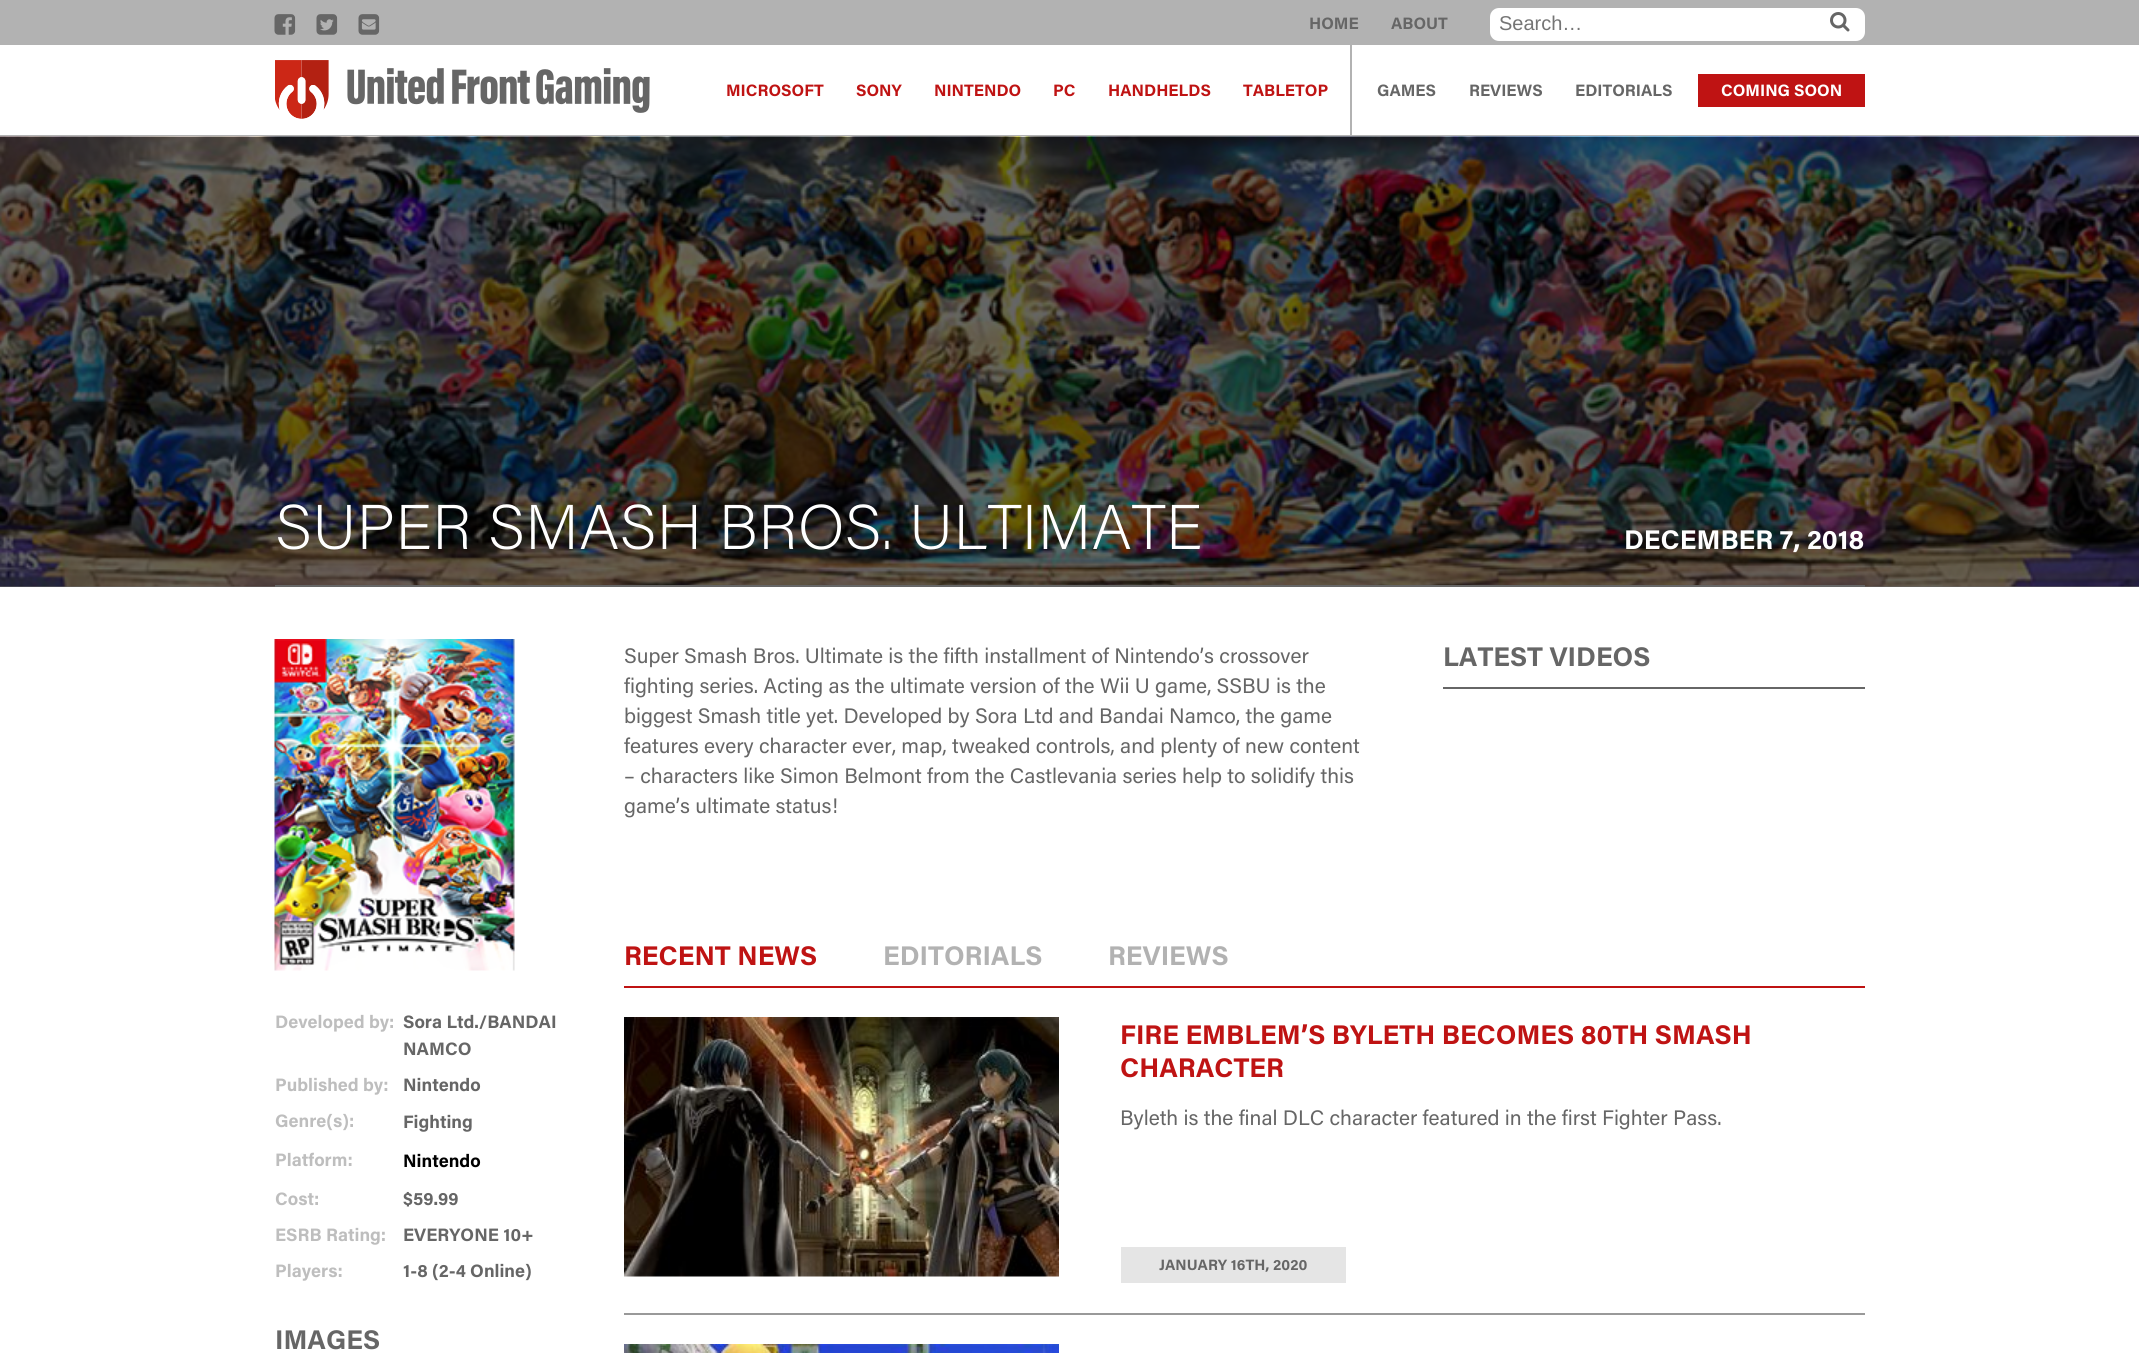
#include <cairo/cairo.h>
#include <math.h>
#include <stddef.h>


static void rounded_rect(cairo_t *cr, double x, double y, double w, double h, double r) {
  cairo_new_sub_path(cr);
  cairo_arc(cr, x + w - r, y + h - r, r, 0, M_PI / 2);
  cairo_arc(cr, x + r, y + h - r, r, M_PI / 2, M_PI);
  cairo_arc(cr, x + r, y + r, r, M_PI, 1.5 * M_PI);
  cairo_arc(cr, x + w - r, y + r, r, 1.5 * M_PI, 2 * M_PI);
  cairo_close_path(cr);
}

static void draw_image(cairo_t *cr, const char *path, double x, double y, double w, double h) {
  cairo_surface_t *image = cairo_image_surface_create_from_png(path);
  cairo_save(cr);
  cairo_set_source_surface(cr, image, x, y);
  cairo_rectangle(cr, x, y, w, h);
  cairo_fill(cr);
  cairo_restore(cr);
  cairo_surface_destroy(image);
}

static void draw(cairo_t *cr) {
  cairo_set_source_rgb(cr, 178 / 255.0, 178 / 255.0, 178 / 255.0);
  cairo_paint(cr);
  draw_image(cr, "images/1.png", 274, 14, 22, 21);
  draw_image(cr, "images/2.png", 316, 14, 22, 21);
  draw_image(cr, "images/3.png", 358, 14, 22, 21);
  cairo_set_source_rgb(cr, 1, 1, 1);
  rounded_rect(cr, 1490, 8, 375, 33, 9);
  cairo_fill(cr);
  draw_image(cr, "images/4.png", 1830, 12, 20, 20);
  cairo_rectangle(cr, 0, 45, 2139, 90);
  cairo_fill(cr);
  draw_image(cr, "images/5.png", 275, 60, 375, 59);
  cairo_set_source_rgb(cr, 178 / 255.0, 178 / 255.0, 178 / 255.0);
  cairo_rectangle(cr, 1350, 45, 2, 90);
  cairo_fill(cr);
  cairo_set_source_rgb(cr, 191 / 255.0, 19 / 255.0, 19 / 255.0);
  cairo_rectangle(cr, 1698, 74, 167, 33);
  cairo_fill(cr);
  cairo_set_source_rgb(cr, 1, 1, 1);
  cairo_rectangle(cr, 0, 587, 2139, 766);
  cairo_fill(cr);
  cairo_set_source_rgb(cr, 102 / 255.0, 102 / 255.0, 102 / 255.0);
  cairo_rectangle(cr, 0, 586, 2139, 1);
  cairo_fill(cr);
  draw_image(cr, "images/6.png", 0, 136, 2139, 451);
  cairo_rectangle(cr, 275, 585, 1590, 2);
  cairo_fill(cr);
  draw_image(cr, "images/7.png", 274, 639, 241, 332);
  cairo_rectangle(cr, 1443, 687, 422, 2);
  cairo_fill(cr);
  cairo_set_source_rgb(cr, 191 / 255.0, 19 / 255.0, 19 / 255.0);
  cairo_rectangle(cr, 624, 986, 1241, 2);
  cairo_fill(cr);
  cairo_set_source_rgb(cr, 153 / 255.0, 153 / 255.0, 153 / 255.0);
  cairo_rectangle(cr, 624, 1313, 1241, 2);
  cairo_fill(cr);
  draw_image(cr, "images/8.png", 624, 1017, 435, 260);
  cairo_set_source_rgb(cr, 229 / 255.0, 229 / 255.0, 229 / 255.0);
  cairo_rectangle(cr, 1121, 1247, 225, 36);
  cairo_fill(cr);
  draw_image(cr, "images/9.png", 624, 1344, 435, 9);
  cairo_select_font_face(cr, "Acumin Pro", CAIRO_FONT_SLANT_NORMAL, CAIRO_FONT_WEIGHT_BOLD);
  cairo_set_font_size(cr, 16.5);
  cairo_set_source_rgb(cr, 102 / 255.0, 102 / 255.0, 102 / 255.0);
  cairo_move_to(cr, 1309, 29);
  cairo_show_text(cr, "HOME");
  cairo_move_to(cr, 1391, 29);
  cairo_show_text(cr, "ABOUT");
  cairo_select_font_face(cr, "Liberation Sans", CAIRO_FONT_SLANT_NORMAL, CAIRO_FONT_WEIGHT_NORMAL);
  cairo_set_font_size(cr, 20);
  cairo_set_source_rgb(cr, 117 / 255.0, 117 / 255.0, 117 / 255.0);
  cairo_move_to(cr, 1499, 30);
  cairo_show_text(cr, "Search…");
  cairo_select_font_face(cr, "Acumin Pro", CAIRO_FONT_SLANT_NORMAL, CAIRO_FONT_WEIGHT_BOLD);
  cairo_set_font_size(cr, 16.5);
  cairo_set_source_rgb(cr, 191 / 255.0, 19 / 255.0, 19 / 255.0);
  cairo_move_to(cr, 726, 96);
  cairo_show_text(cr, "MICROSOFT");
  cairo_move_to(cr, 856, 96);
  cairo_show_text(cr, "SONY");
  cairo_move_to(cr, 934, 96);
  cairo_show_text(cr, "NINTENDO");
  cairo_move_to(cr, 1053, 96);
  cairo_show_text(cr, "PC");
  cairo_move_to(cr, 1108, 96);
  cairo_show_text(cr, "HANDHELDS");
  cairo_move_to(cr, 1243, 96);
  cairo_show_text(cr, "TABLETOP");
  cairo_set_source_rgb(cr, 102 / 255.0, 102 / 255.0, 102 / 255.0);
  cairo_move_to(cr, 1377, 96);
  cairo_show_text(cr, "GAMES");
  cairo_move_to(cr, 1469, 96);
  cairo_show_text(cr, "REVIEWS");
  cairo_move_to(cr, 1575, 96);
  cairo_show_text(cr, "EDITORIALS");
  cairo_set_source_rgb(cr, 1, 1, 1);
  cairo_move_to(cr, 1721, 96);
  cairo_show_text(cr, "COMING SOON");
  cairo_select_font_face(cr, "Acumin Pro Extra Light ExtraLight", CAIRO_FONT_SLANT_NORMAL, CAIRO_FONT_WEIGHT_NORMAL);
  cairo_set_font_size(cr, 63);
  cairo_move_to(cr, 275, 549);
  cairo_show_text(cr, "SUPER SMASH BROS. ULTIMATE");
  cairo_select_font_face(cr, "Acumin Pro", CAIRO_FONT_SLANT_NORMAL, CAIRO_FONT_WEIGHT_BOLD);
  cairo_set_font_size(cr, 27);
  cairo_move_to(cr, 1624, 549);
  cairo_show_text(cr, "DECEMBER 7, 2018");
  cairo_set_font_size(cr, 18);
  cairo_set_source_rgb(cr, 190 / 255.0, 190 / 255.0, 190 / 255.0);
  cairo_move_to(cr, 275, 1028);
  cairo_show_text(cr, "Developed by:");
  cairo_set_source_rgb(cr, 102 / 255.0, 102 / 255.0, 102 / 255.0);
  cairo_move_to(cr, 403, 1028);
  cairo_show_text(cr, "Sora Ltd./BANDAI");
  cairo_move_to(cr, 403, 1055);
  cairo_show_text(cr, "NAMCO");
  cairo_set_source_rgb(cr, 190 / 255.0, 190 / 255.0, 190 / 255.0);
  cairo_move_to(cr, 275, 1091);
  cairo_show_text(cr, "Published by:");
  cairo_set_source_rgb(cr, 102 / 255.0, 102 / 255.0, 102 / 255.0);
  cairo_move_to(cr, 403, 1091);
  cairo_show_text(cr, "Nintendo");
  cairo_set_source_rgb(cr, 190 / 255.0, 190 / 255.0, 190 / 255.0);
  cairo_move_to(cr, 275, 1127);
  cairo_show_text(cr, "Genre(s):");
  cairo_set_source_rgb(cr, 102 / 255.0, 102 / 255.0, 102 / 255.0);
  cairo_move_to(cr, 403, 1128);
  cairo_show_text(cr, "Fighting");
  cairo_set_source_rgb(cr, 190 / 255.0, 190 / 255.0, 190 / 255.0);
  cairo_move_to(cr, 275, 1166);
  cairo_show_text(cr, "Platform:");
  cairo_set_source_rgb(cr, 0, 0, 0);
  cairo_move_to(cr, 403, 1167);
  cairo_show_text(cr, "Nintendo");
  cairo_set_source_rgb(cr, 190 / 255.0, 190 / 255.0, 190 / 255.0);
  cairo_move_to(cr, 275, 1205);
  cairo_show_text(cr, "Cost:");
  cairo_set_source_rgb(cr, 102 / 255.0, 102 / 255.0, 102 / 255.0);
  cairo_move_to(cr, 403, 1205);
  cairo_show_text(cr, "$59.99");
  cairo_set_source_rgb(cr, 190 / 255.0, 190 / 255.0, 190 / 255.0);
  cairo_move_to(cr, 275, 1241);
  cairo_show_text(cr, "ESRB Rating:");
  cairo_set_source_rgb(cr, 102 / 255.0, 102 / 255.0, 102 / 255.0);
  cairo_move_to(cr, 403, 1241);
  cairo_show_text(cr, "EVERYONE 10+");
  cairo_set_source_rgb(cr, 190 / 255.0, 190 / 255.0, 190 / 255.0);
  cairo_move_to(cr, 275, 1277);
  cairo_show_text(cr, "Players:");
  cairo_set_source_rgb(cr, 102 / 255.0, 102 / 255.0, 102 / 255.0);
  cairo_move_to(cr, 403, 1277);
  cairo_show_text(cr, "1-8 (2-4 Online)");
  cairo_set_font_size(cr, 27);
  cairo_move_to(cr, 275, 1349);
  cairo_show_text(cr, "IMAGES");
  cairo_select_font_face(cr, "Acumin Pro", CAIRO_FONT_SLANT_NORMAL, CAIRO_FONT_WEIGHT_NORMAL);
  cairo_set_font_size(cr, 21);
  cairo_move_to(cr, 624, 663);
  cairo_show_text(cr, "Super Smash Bros. Ultimate is the fifth installment of Nintendo’s crossover");
  cairo_move_to(cr, 624, 693);
  cairo_show_text(cr, "fighting series. Acting as the ultimate version of the Wii U game, SSBU is the");
  cairo_move_to(cr, 624, 723);
  cairo_show_text(cr, "biggest Smash title yet. Developed by Sora Ltd and Bandai Namco, the game");
  cairo_move_to(cr, 624, 753);
  cairo_show_text(cr, "features every character ever, map, tweaked controls, and plenty of new content");
  cairo_move_to(cr, 624, 783);
  cairo_show_text(cr, "– characters like Simon Belmont from the Castlevania series help to solidify this");
  cairo_move_to(cr, 624, 813);
  cairo_show_text(cr, "game’s ultimate status!");
  cairo_select_font_face(cr, "Acumin Pro", CAIRO_FONT_SLANT_NORMAL, CAIRO_FONT_WEIGHT_BOLD);
  cairo_set_font_size(cr, 27);
  cairo_move_to(cr, 1443, 666);
  cairo_show_text(cr, "LATEST VIDEOS");
  cairo_set_source_rgb(cr, 191 / 255.0, 19 / 255.0, 19 / 255.0);
  cairo_move_to(cr, 624, 965);
  cairo_show_text(cr, "RECENT NEWS");
  cairo_set_source_rgb(cr, 178 / 255.0, 178 / 255.0, 178 / 255.0);
  cairo_move_to(cr, 883, 965);
  cairo_show_text(cr, "EDITORIALS");
  cairo_move_to(cr, 1108, 965);
  cairo_show_text(cr, "REVIEWS");
  cairo_set_source_rgb(cr, 191 / 255.0, 19 / 255.0, 19 / 255.0);
  cairo_move_to(cr, 1120, 1044);
  cairo_show_text(cr, "FIRE EMBLEM’S BYLETH BECOMES 80TH SMASH");
  cairo_move_to(cr, 1120, 1077);
  cairo_show_text(cr, "CHARACTER");
  cairo_select_font_face(cr, "Acumin Pro", CAIRO_FONT_SLANT_NORMAL, CAIRO_FONT_WEIGHT_NORMAL);
  cairo_set_font_size(cr, 21);
  cairo_set_source_rgb(cr, 102 / 255.0, 102 / 255.0, 102 / 255.0);
  cairo_move_to(cr, 1120, 1125);
  cairo_show_text(cr, "Byleth is the final DLC character featured in the first Fighter Pass.");
  cairo_select_font_face(cr, "Acumin Pro", CAIRO_FONT_SLANT_NORMAL, CAIRO_FONT_WEIGHT_BOLD);
  cairo_set_font_size(cr, 15);
  cairo_move_to(cr, 1159, 1270);
  cairo_show_text(cr, "JANUARY 16TH, 2020");
}

int main(void) {
  cairo_surface_t *surface = cairo_image_surface_create(CAIRO_FORMAT_RGB24, 2139, 1353);
  cairo_t *cr = cairo_create(surface);
  cairo_font_options_t *options = cairo_font_options_create();
  cairo_font_options_set_hint_metrics(options, CAIRO_HINT_METRICS_OFF);
  cairo_font_options_set_hint_style(options, CAIRO_HINT_STYLE_NONE);
  cairo_set_font_options(cr, options);
  cairo_set_miter_limit(cr, 4);
  draw(cr);
  cairo_surface_write_to_png(surface, "out.png");
  cairo_font_options_destroy(options);
  cairo_destroy(cr);
  cairo_surface_destroy(surface);
  return 0;
}
